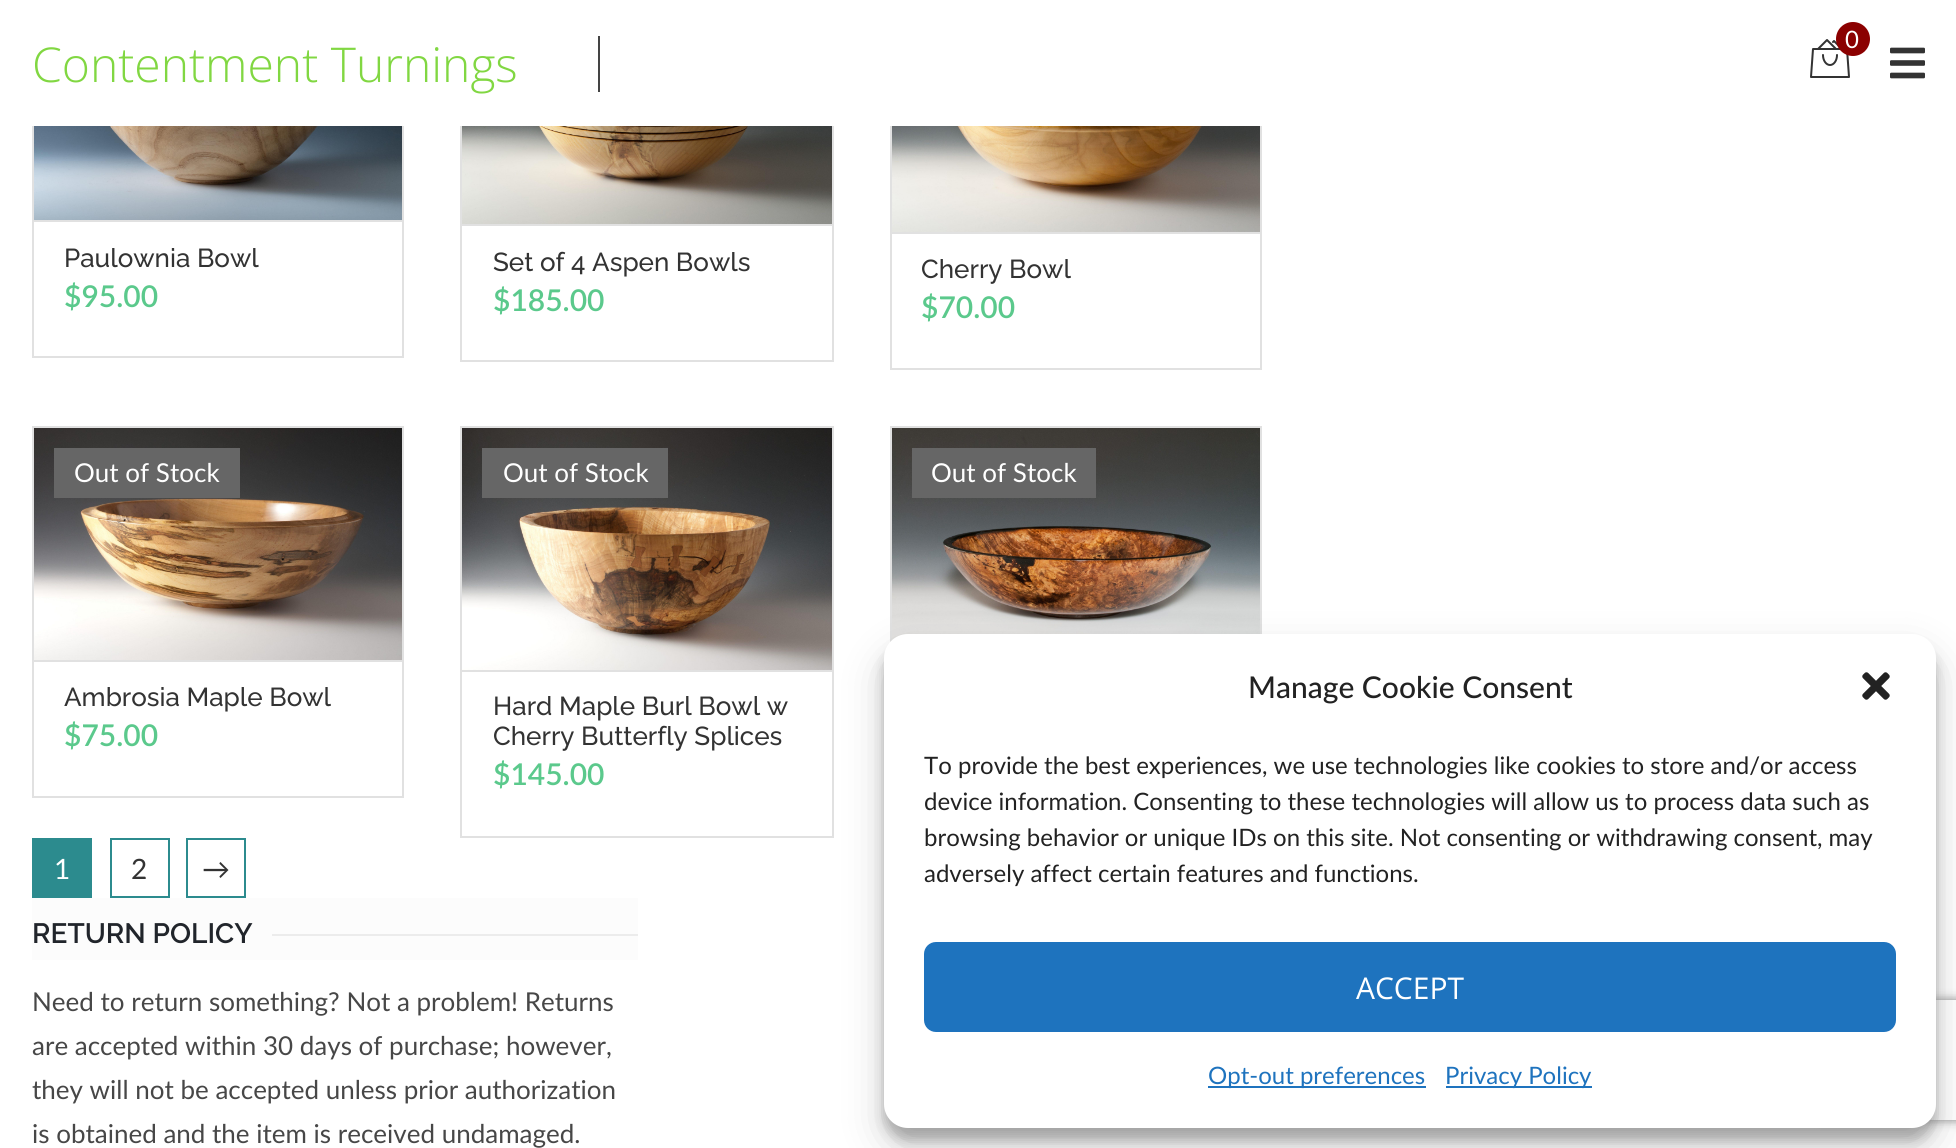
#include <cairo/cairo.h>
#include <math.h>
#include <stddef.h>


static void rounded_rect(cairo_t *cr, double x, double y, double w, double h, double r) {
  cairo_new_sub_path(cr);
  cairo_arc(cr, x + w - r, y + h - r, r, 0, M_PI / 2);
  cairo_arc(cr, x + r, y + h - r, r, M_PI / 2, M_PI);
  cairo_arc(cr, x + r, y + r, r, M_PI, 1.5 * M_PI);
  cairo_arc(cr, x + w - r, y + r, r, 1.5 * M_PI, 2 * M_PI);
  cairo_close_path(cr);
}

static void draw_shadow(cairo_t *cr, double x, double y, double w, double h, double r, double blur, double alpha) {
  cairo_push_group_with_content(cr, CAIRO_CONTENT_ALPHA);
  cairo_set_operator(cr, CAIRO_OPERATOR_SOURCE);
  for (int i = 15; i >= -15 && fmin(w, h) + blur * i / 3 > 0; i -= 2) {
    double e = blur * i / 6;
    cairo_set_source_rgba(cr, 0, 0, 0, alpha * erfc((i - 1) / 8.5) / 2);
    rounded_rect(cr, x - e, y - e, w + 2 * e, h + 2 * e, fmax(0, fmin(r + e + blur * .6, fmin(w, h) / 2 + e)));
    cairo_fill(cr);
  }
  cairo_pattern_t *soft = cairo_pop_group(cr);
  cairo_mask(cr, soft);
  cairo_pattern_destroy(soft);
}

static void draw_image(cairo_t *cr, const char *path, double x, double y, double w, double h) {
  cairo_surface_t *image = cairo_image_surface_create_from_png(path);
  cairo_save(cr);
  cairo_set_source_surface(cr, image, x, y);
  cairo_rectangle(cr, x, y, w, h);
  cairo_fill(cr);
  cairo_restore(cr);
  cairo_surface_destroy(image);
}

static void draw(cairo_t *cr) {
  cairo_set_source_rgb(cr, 1, 1, 1);
  cairo_paint(cr);
  cairo_rectangle(cr, 33, -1, 370, 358);
  cairo_set_source_rgb(cr, 225 / 255.0, 225 / 255.0, 225 / 255.0);
  cairo_stroke(cr);
  cairo_rectangle(cr, 461, -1, 372, 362);
  cairo_stroke(cr);
  cairo_rectangle(cr, 891, -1, 370, 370);
  cairo_stroke(cr);
  cairo_set_source_rgb(cr, 1, 1, 1);
  cairo_rectangle(cr, 32, 0, 1230, 126);
  cairo_fill(cr);
  draw_image(cr, "images/1.png", 1810, 39, 40, 39);
  cairo_set_source_rgb(cr, 139 / 255.0, 0, 0);
  cairo_arc(cr, 1853, 39, 17, 0, 2 * M_PI);
  cairo_fill(cr);
  draw_image(cr, "images/2.png", 1890, 47, 35, 32);
  cairo_set_source_rgb(cr, 68 / 255.0, 68 / 255.0, 68 / 255.0);
  cairo_rectangle(cr, 598, 36, 2, 56);
  cairo_fill(cr);
  draw_image(cr, "images/3.png", 34, 126, 368, 94);
  cairo_set_source_rgb(cr, 225 / 255.0, 225 / 255.0, 225 / 255.0);
  cairo_rectangle(cr, 34, 220, 368, 2);
  cairo_fill(cr);
  draw_image(cr, "images/4.png", 462, 126, 370, 98);
  cairo_rectangle(cr, 462, 224, 370, 2);
  cairo_fill(cr);
  draw_image(cr, "images/5.png", 892, 126, 368, 106);
  cairo_rectangle(cr, 892, 232, 368, 2);
  cairo_fill(cr);
  cairo_rectangle(cr, 33, 427, 370, 370);
  cairo_stroke(cr);
  draw_image(cr, "images/6.png", 34, 428, 368, 232);
  cairo_set_source_rgb(cr, 102 / 255.0, 102 / 255.0, 102 / 255.0);
  cairo_rectangle(cr, 54, 448, 186, 50);
  cairo_fill(cr);
  cairo_set_source_rgb(cr, 225 / 255.0, 225 / 255.0, 225 / 255.0);
  cairo_rectangle(cr, 34, 660, 368, 2);
  cairo_fill(cr);
  cairo_rectangle(cr, 461, 427, 372, 410);
  cairo_stroke(cr);
  draw_image(cr, "images/7.png", 462, 428, 370, 242);
  cairo_set_source_rgb(cr, 102 / 255.0, 102 / 255.0, 102 / 255.0);
  cairo_rectangle(cr, 482, 448, 186, 50);
  cairo_fill(cr);
  cairo_set_source_rgb(cr, 225 / 255.0, 225 / 255.0, 225 / 255.0);
  cairo_rectangle(cr, 462, 670, 370, 2);
  cairo_fill(cr);
  cairo_rectangle(cr, 891, 427, 370, 382);
  cairo_stroke(cr);
  draw_image(cr, "images/8.png", 892, 428, 368, 213);
  cairo_set_source_rgb(cr, 102 / 255.0, 102 / 255.0, 102 / 255.0);
  cairo_rectangle(cr, 912, 448, 184, 50);
  cairo_fill(cr);
  cairo_rectangle(cr, 33, 839, 58, 58);
  cairo_set_source_rgb(cr, 44 / 255.0, 139 / 255.0, 142 / 255.0);
  cairo_stroke(cr);
  cairo_rectangle(cr, 34, 840, 56, 56);
  cairo_fill(cr);
  cairo_rectangle(cr, 111, 839, 58, 58);
  cairo_stroke(cr);
  cairo_rectangle(cr, 187, 839, 58, 58);
  cairo_stroke(cr);
  cairo_set_source_rgb(cr, 252 / 255.0, 252 / 255.0, 252 / 255.0);
  cairo_rectangle(cr, 32, 898, 606, 62);
  cairo_fill(cr);
  cairo_set_source_rgb(cr, 236 / 255.0, 236 / 255.0, 236 / 255.0);
  cairo_rectangle(cr, 272, 934, 366, 2);
  cairo_fill(cr);
  cairo_set_source_rgb(cr, 0, 0, 0);
  draw_shadow(cr, 884, 646, 1052, 494, 24, 6, 0.23);
  draw_shadow(cr, 884, 654, 1052, 494, 24, 20, 0.19);
  cairo_save(cr);
  cairo_set_fill_rule(cr, CAIRO_FILL_RULE_EVEN_ODD);
  cairo_new_path(cr);
  cairo_move_to(cr, 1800, 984);
  cairo_line_to(cr, 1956, 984);
  cairo_line_to(cr, 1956, 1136);
  cairo_line_to(cr, 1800, 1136);
  cairo_close_path(cr);
  cairo_move_to(cr, 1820, 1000);
  cairo_line_to(cr, 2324, 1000);
  cairo_curve_to(cr, 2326, 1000, 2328, 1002, 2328, 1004);
  cairo_line_to(cr, 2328, 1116);
  cairo_curve_to(cr, 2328, 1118, 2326, 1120, 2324, 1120);
  cairo_line_to(cr, 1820, 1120);
  cairo_curve_to(cr, 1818, 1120, 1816, 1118, 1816, 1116);
  cairo_line_to(cr, 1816, 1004);
  cairo_curve_to(cr, 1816, 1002, 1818, 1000, 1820, 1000);
  cairo_close_path(cr);
  cairo_clip(cr);
  cairo_set_source_rgb(cr, 128 / 255.0, 128 / 255.0, 128 / 255.0);
  draw_shadow(cr, 1816, 1000, 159, 120, 4, 5, 1);
  cairo_restore(cr);
  cairo_set_source_rgb(cr, 1, 1, 1);
  rounded_rect(cr, 884, 634, 1052, 494, 24);
  cairo_fill(cr);
  draw_image(cr, "images/9.png", 1862, 672, 28, 28);
  cairo_set_source_rgb(cr, 30 / 255.0, 115 / 255.0, 190 / 255.0);
  rounded_rect(cr, 925, 943, 970, 88, 11);
  cairo_fill_preserve(cr);
  cairo_stroke(cr);
  cairo_rectangle(cr, 1208, 1086, 218, 2);
  cairo_fill(cr);
  cairo_rectangle(cr, 1446, 1086, 146, 2);
  cairo_fill(cr);
  cairo_select_font_face(cr, "Lato", CAIRO_FONT_SLANT_NORMAL, CAIRO_FONT_WEIGHT_NORMAL);
  cairo_set_font_size(cr, 24);
  cairo_set_source_rgb(cr, 1, 1, 1);
  cairo_move_to(cr, 1845, 48);
  cairo_show_text(cr, "0");
  cairo_select_font_face(cr, "Open Sans Light", CAIRO_FONT_SLANT_NORMAL, CAIRO_FONT_WEIGHT_NORMAL);
  cairo_set_font_size(cr, 48);
  cairo_set_source_rgb(cr, 129 / 255.0, 215 / 255.0, 66 / 255.0);
  cairo_move_to(cr, 32, 82);
  cairo_show_text(cr, "Contentment Turnings");
  cairo_select_font_face(cr, "Raleway Medium", CAIRO_FONT_SLANT_NORMAL, CAIRO_FONT_WEIGHT_NORMAL);
  cairo_set_font_size(cr, 26);
  cairo_set_source_rgb(cr, 51 / 255.0, 51 / 255.0, 51 / 255.0);
  cairo_move_to(cr, 64, 267);
  cairo_show_text(cr, "Paulownia Bowl");
  cairo_select_font_face(cr, "Lato SemiBold", CAIRO_FONT_SLANT_NORMAL, CAIRO_FONT_WEIGHT_NORMAL);
  cairo_set_font_size(cr, 30);
  cairo_set_source_rgb(cr, 91 / 255.0, 201 / 255.0, 140 / 255.0);
  cairo_move_to(cr, 64, 307);
  cairo_show_text(cr, "$95.00");
  cairo_select_font_face(cr, "Raleway Medium", CAIRO_FONT_SLANT_NORMAL, CAIRO_FONT_WEIGHT_NORMAL);
  cairo_set_font_size(cr, 26);
  cairo_set_source_rgb(cr, 51 / 255.0, 51 / 255.0, 51 / 255.0);
  cairo_move_to(cr, 493, 271);
  cairo_show_text(cr, "Set of 4 Aspen Bowls");
  cairo_select_font_face(cr, "Lato SemiBold", CAIRO_FONT_SLANT_NORMAL, CAIRO_FONT_WEIGHT_NORMAL);
  cairo_set_font_size(cr, 30);
  cairo_set_source_rgb(cr, 91 / 255.0, 201 / 255.0, 140 / 255.0);
  cairo_move_to(cr, 493, 311);
  cairo_show_text(cr, "$185.00");
  cairo_select_font_face(cr, "Raleway Medium", CAIRO_FONT_SLANT_NORMAL, CAIRO_FONT_WEIGHT_NORMAL);
  cairo_set_font_size(cr, 26);
  cairo_set_source_rgb(cr, 51 / 255.0, 51 / 255.0, 51 / 255.0);
  cairo_move_to(cr, 921, 278);
  cairo_show_text(cr, "Cherry Bowl");
  cairo_select_font_face(cr, "Lato SemiBold", CAIRO_FONT_SLANT_NORMAL, CAIRO_FONT_WEIGHT_NORMAL);
  cairo_set_font_size(cr, 30);
  cairo_set_source_rgb(cr, 91 / 255.0, 201 / 255.0, 140 / 255.0);
  cairo_move_to(cr, 921, 318);
  cairo_show_text(cr, "$70.00");
  cairo_select_font_face(cr, "Lato", CAIRO_FONT_SLANT_NORMAL, CAIRO_FONT_WEIGHT_NORMAL);
  cairo_set_font_size(cr, 26);
  cairo_set_source_rgb(cr, 1, 1, 1);
  cairo_move_to(cr, 74, 482);
  cairo_show_text(cr, "Out of Stock");
  cairo_select_font_face(cr, "Raleway Medium", CAIRO_FONT_SLANT_NORMAL, CAIRO_FONT_WEIGHT_NORMAL);
  cairo_set_source_rgb(cr, 51 / 255.0, 51 / 255.0, 51 / 255.0);
  cairo_move_to(cr, 64, 706);
  cairo_show_text(cr, "Ambrosia Maple Bowl");
  cairo_select_font_face(cr, "Lato SemiBold", CAIRO_FONT_SLANT_NORMAL, CAIRO_FONT_WEIGHT_NORMAL);
  cairo_set_font_size(cr, 30);
  cairo_set_source_rgb(cr, 91 / 255.0, 201 / 255.0, 140 / 255.0);
  cairo_move_to(cr, 64, 746);
  cairo_show_text(cr, "$75.00");
  cairo_select_font_face(cr, "Lato", CAIRO_FONT_SLANT_NORMAL, CAIRO_FONT_WEIGHT_NORMAL);
  cairo_set_font_size(cr, 26);
  cairo_set_source_rgb(cr, 1, 1, 1);
  cairo_move_to(cr, 503, 482);
  cairo_show_text(cr, "Out of Stock");
  cairo_select_font_face(cr, "Raleway Medium", CAIRO_FONT_SLANT_NORMAL, CAIRO_FONT_WEIGHT_NORMAL);
  cairo_set_source_rgb(cr, 51 / 255.0, 51 / 255.0, 51 / 255.0);
  cairo_move_to(cr, 493, 715);
  cairo_show_text(cr, "Hard Maple Burl Bowl w");
  cairo_move_to(cr, 493, 745);
  cairo_show_text(cr, "Cherry Butterfly Splices");
  cairo_select_font_face(cr, "Lato SemiBold", CAIRO_FONT_SLANT_NORMAL, CAIRO_FONT_WEIGHT_NORMAL);
  cairo_set_font_size(cr, 30);
  cairo_set_source_rgb(cr, 91 / 255.0, 201 / 255.0, 140 / 255.0);
  cairo_move_to(cr, 493, 785);
  cairo_show_text(cr, "$145.00");
  cairo_select_font_face(cr, "Lato", CAIRO_FONT_SLANT_NORMAL, CAIRO_FONT_WEIGHT_NORMAL);
  cairo_set_font_size(cr, 26);
  cairo_set_source_rgb(cr, 1, 1, 1);
  cairo_move_to(cr, 931, 482);
  cairo_show_text(cr, "Out of Stock");
  cairo_set_font_size(cr, 28);
  cairo_move_to(cr, 54, 879);
  cairo_show_text(cr, "1");
  cairo_set_source_rgb(cr, 51 / 255.0, 51 / 255.0, 51 / 255.0);
  cairo_move_to(cr, 131, 879);
  cairo_show_text(cr, "2");
  cairo_move_to(cr, 202, 879);
  cairo_show_text(cr, "→");
  cairo_select_font_face(cr, "Raleway SemiBold", CAIRO_FONT_SLANT_NORMAL, CAIRO_FONT_WEIGHT_NORMAL);
  cairo_set_source_rgb(cr, 33 / 255.0, 37 / 255.0, 43 / 255.0);
  cairo_move_to(cr, 32, 943);
  cairo_show_text(cr, "RETURN POLICY");
  cairo_select_font_face(cr, "Lato", CAIRO_FONT_SLANT_NORMAL, CAIRO_FONT_WEIGHT_NORMAL);
  cairo_set_font_size(cr, 26);
  cairo_set_source_rgb(cr, 71 / 255.0, 71 / 255.0, 71 / 255.0);
  cairo_move_to(cr, 32, 1011);
  cairo_show_text(cr, "Need to return something? Not a problem! Returns");
  cairo_move_to(cr, 32, 1055);
  cairo_show_text(cr, "are accepted within 30 days of purchase; however,");
  cairo_move_to(cr, 32, 1099);
  cairo_show_text(cr, "they will not be accepted unless prior authorization");
  cairo_move_to(cr, 32, 1143);
  cairo_show_text(cr, "is obtained and the item is received undamaged.");
  cairo_select_font_face(cr, "Lato Medium", CAIRO_FONT_SLANT_NORMAL, CAIRO_FONT_WEIGHT_NORMAL);
  cairo_set_font_size(cr, 30);
  cairo_set_source_rgb(cr, 34 / 255.0, 34 / 255.0, 34 / 255.0);
  cairo_move_to(cr, 1248, 698);
  cairo_show_text(cr, "Manage Cookie Consent");
  cairo_select_font_face(cr, "Lato", CAIRO_FONT_SLANT_NORMAL, CAIRO_FONT_WEIGHT_NORMAL);
  cairo_set_font_size(cr, 24);
  cairo_move_to(cr, 924, 774);
  cairo_show_text(cr, "To provide the best experiences, we use technologies like cookies to store and/or access");
  cairo_move_to(cr, 924, 810);
  cairo_show_text(cr, "device information. Consenting to these technologies will allow us to process data such as");
  cairo_move_to(cr, 924, 846);
  cairo_show_text(cr, "browsing behavior or unique IDs on this site. Not consenting or withdrawing consent, may");
  cairo_move_to(cr, 924, 882);
  cairo_show_text(cr, "adversely affect certain features and functions.");
  cairo_select_font_face(cr, "Open Sans", CAIRO_FONT_SLANT_NORMAL, CAIRO_FONT_WEIGHT_NORMAL);
  cairo_set_font_size(cr, 30);
  cairo_set_source_rgb(cr, 1, 1, 1);
  cairo_move_to(cr, 1356, 999);
  cairo_show_text(cr, "ACCEPT");
  cairo_select_font_face(cr, "Lato", CAIRO_FONT_SLANT_NORMAL, CAIRO_FONT_WEIGHT_NORMAL);
  cairo_set_font_size(cr, 24);
  cairo_set_source_rgb(cr, 30 / 255.0, 115 / 255.0, 190 / 255.0);
  cairo_move_to(cr, 1208, 1084);
  cairo_show_text(cr, "Opt-out preferences");
  cairo_move_to(cr, 1445, 1084);
  cairo_show_text(cr, "Privacy Policy");
}

int main(void) {
  cairo_surface_t *surface = cairo_image_surface_create(CAIRO_FORMAT_RGB24, 1956, 1148);
  cairo_t *cr = cairo_create(surface);
  cairo_font_options_t *options = cairo_font_options_create();
  cairo_font_options_set_hint_metrics(options, CAIRO_HINT_METRICS_OFF);
  cairo_font_options_set_hint_style(options, CAIRO_HINT_STYLE_NONE);
  cairo_set_font_options(cr, options);
  cairo_set_miter_limit(cr, 4);
  draw(cr);
  cairo_surface_write_to_png(surface, "out.png");
  cairo_font_options_destroy(options);
  cairo_destroy(cr);
  cairo_surface_destroy(surface);
  return 0;
}
